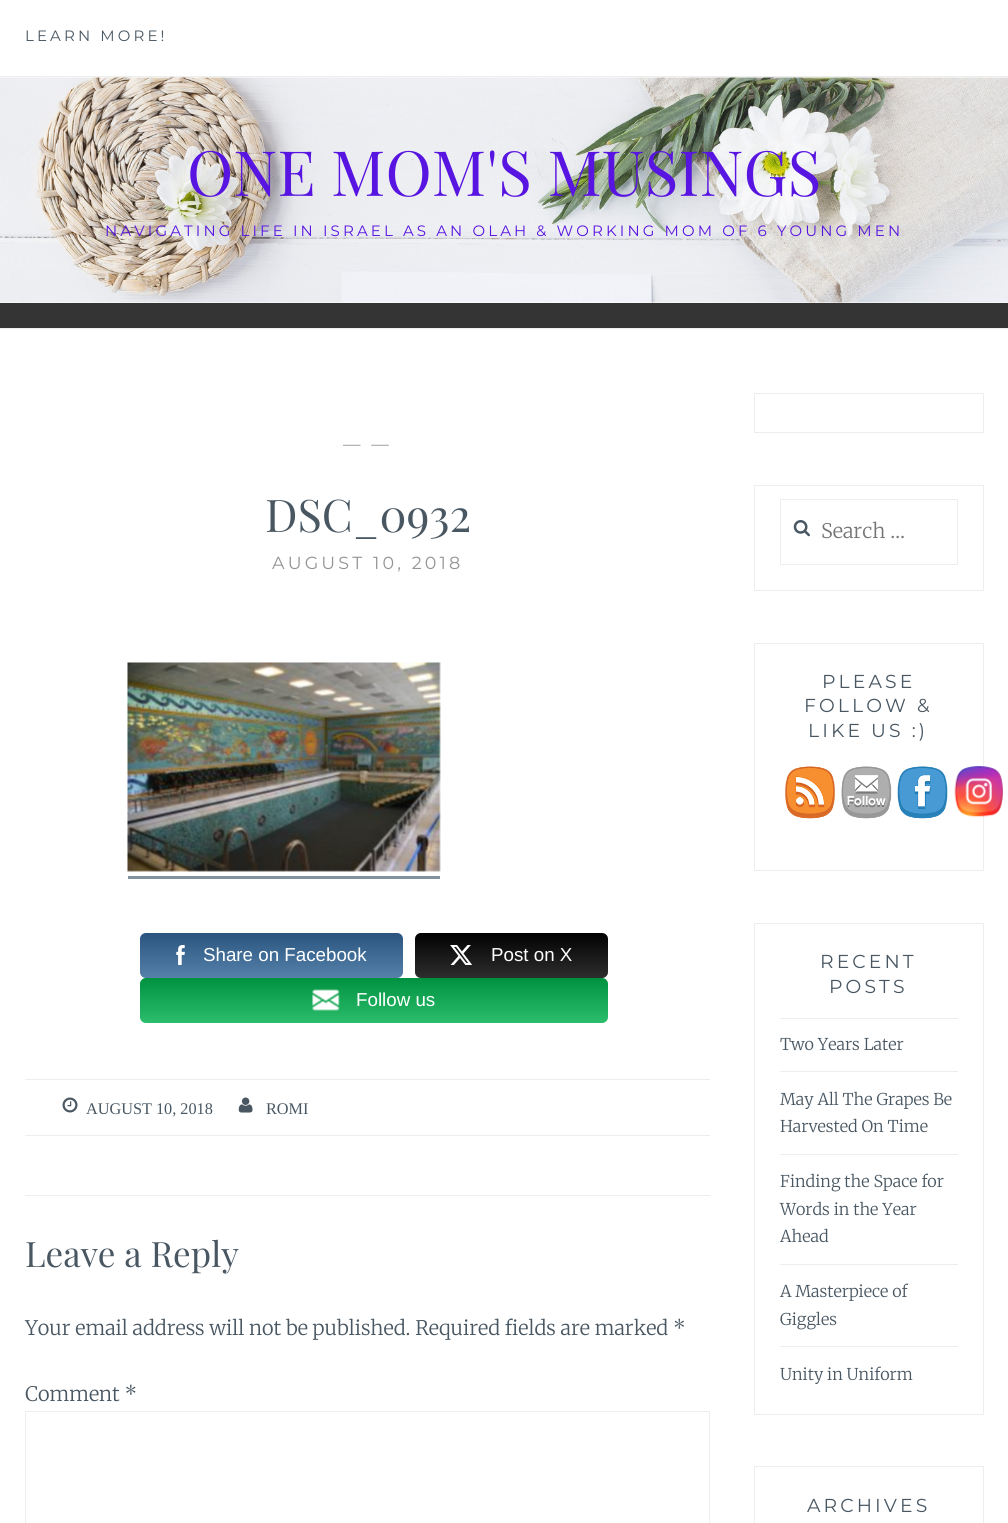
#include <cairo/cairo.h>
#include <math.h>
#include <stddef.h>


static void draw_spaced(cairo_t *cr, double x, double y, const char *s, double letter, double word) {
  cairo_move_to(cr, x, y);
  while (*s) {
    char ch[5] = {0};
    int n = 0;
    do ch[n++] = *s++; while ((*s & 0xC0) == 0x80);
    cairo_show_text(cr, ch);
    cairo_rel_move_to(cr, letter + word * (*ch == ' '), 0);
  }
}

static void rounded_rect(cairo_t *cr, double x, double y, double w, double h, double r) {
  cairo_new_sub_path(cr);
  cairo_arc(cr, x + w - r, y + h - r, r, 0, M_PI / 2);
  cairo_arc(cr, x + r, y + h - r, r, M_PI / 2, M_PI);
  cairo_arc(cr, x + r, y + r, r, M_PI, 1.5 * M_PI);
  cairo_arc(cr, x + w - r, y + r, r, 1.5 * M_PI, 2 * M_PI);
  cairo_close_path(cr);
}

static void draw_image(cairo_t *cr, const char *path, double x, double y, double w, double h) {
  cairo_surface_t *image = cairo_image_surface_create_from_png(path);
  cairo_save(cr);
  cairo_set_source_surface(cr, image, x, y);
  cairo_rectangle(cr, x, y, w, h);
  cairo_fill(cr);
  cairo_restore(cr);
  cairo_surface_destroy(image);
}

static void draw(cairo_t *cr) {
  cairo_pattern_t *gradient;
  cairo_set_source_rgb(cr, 1, 1, 1);
  cairo_paint(cr);
  cairo_set_source_rgb(cr, 238 / 255.0, 238 / 255.0, 238 / 255.0);
  cairo_rectangle(cr, 0, 76, 1008, 1);
  cairo_fill(cr);
  cairo_set_source_rgb(cr, 52 / 255.0, 52 / 255.0, 52 / 255.0);
  cairo_rectangle(cr, 0, 303, 1008, 25);
  cairo_fill(cr);
  draw_image(cr, "images/1.png", 0, 77, 1008, 226);
  cairo_set_source_rgb(cr, 238 / 255.0, 238 / 255.0, 238 / 255.0);
  cairo_rectangle(cr, 0, 328, 1008, 1);
  cairo_fill(cr);
  draw_image(cr, "images/2.png", 127, 662, 314, 210);
  cairo_set_source_rgb(cr, 129 / 255.0, 147 / 255.0, 161 / 255.0);
  cairo_rectangle(cr, 128, 876, 312, 3);
  cairo_fill(cr);
  cairo_set_source_rgb(cr, 51 / 255.0, 102 / 255.0, 153 / 255.0);
  rounded_rect(cr, 140, 933, 263, 45, 6);
  cairo_fill(cr);
  gradient = cairo_pattern_create_linear(271, 933, 271, 978);
  cairo_pattern_add_color_stop_rgba(gradient, 0, 0, 0, 0, 0.17);
  cairo_pattern_add_color_stop_rgba(gradient, 1, 1, 1, 1, 0.17);
  cairo_set_source(cr, gradient);
  cairo_pattern_destroy(gradient);
  rounded_rect(cr, 140, 933, 263, 45, 6);
  cairo_fill(cr);
  draw_image(cr, "images/3.png", 176, 945, 9, 20);
  cairo_set_source_rgb(cr, 2 / 255.0, 2 / 255.0, 2 / 255.0);
  rounded_rect(cr, 415, 933, 193, 45, 6);
  cairo_fill(cr);
  gradient = cairo_pattern_create_linear(511, 933, 511, 978);
  cairo_pattern_add_color_stop_rgba(gradient, 0, 0, 0, 0, 0.17);
  cairo_pattern_add_color_stop_rgba(gradient, 1, 1, 1, 1, 0.17);
  cairo_set_source(cr, gradient);
  cairo_pattern_destroy(gradient);
  rounded_rect(cr, 415, 933, 193, 45, 6);
  cairo_fill(cr);
  draw_image(cr, "images/4.png", 450, 945, 23, 20);
  cairo_set_source_rgb(cr, 0, 176 / 255.0, 78 / 255.0);
  rounded_rect(cr, 140, 978, 468, 45, 6);
  cairo_fill(cr);
  gradient = cairo_pattern_create_linear(374, 978, 374, 1023);
  cairo_pattern_add_color_stop_rgba(gradient, 0, 0, 0, 0, 0.17);
  cairo_pattern_add_color_stop_rgba(gradient, 1, 1, 1, 1, 0.17);
  cairo_set_source(cr, gradient);
  cairo_pattern_destroy(gradient);
  rounded_rect(cr, 140, 978, 468, 45, 6);
  cairo_fill(cr);
  draw_image(cr, "images/5.png", 312, 989, 28, 22);
  cairo_set_source_rgb(cr, 238 / 255.0, 238 / 255.0, 238 / 255.0);
  cairo_rectangle(cr, 25, 1079, 685, 1);
  cairo_fill(cr);
  cairo_rectangle(cr, 25, 1135, 685, 1);
  cairo_fill(cr);
  draw_image(cr, "images/6.png", 62, 1097, 16, 16);
  draw_image(cr, "images/7.png", 238, 1097, 15, 16);
  cairo_rectangle(cr, 25, 1195, 685, 1);
  cairo_fill(cr);
  cairo_rectangle(cr, 25.5, 1411.5, 684, 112);
  cairo_set_line_width(cr, 1);
  cairo_stroke(cr);
  cairo_rectangle(cr, 754.5, 393.5, 229, 39);
  cairo_stroke(cr);
  cairo_rectangle(cr, 754.5, 485.5, 229, 105);
  cairo_stroke(cr);
  cairo_rectangle(cr, 780.5, 499.5, 177, 65);
  cairo_stroke(cr);
  draw_image(cr, "images/8.png", 793, 520, 17, 17);
  cairo_rectangle(cr, 754.5, 643.5, 229, 227);
  cairo_stroke(cr);
  draw_image(cr, "images/9.png", 785, 766, 50, 53);
  draw_image(cr, "images/10.png", 841, 766, 51, 53);
  draw_image(cr, "images/11.png", 897, 766, 51, 53);
  draw_image(cr, "images/12.png", 954, 766, 49, 51);
  cairo_rectangle(cr, 754.5, 923.5, 229, 491);
  cairo_stroke(cr);
  cairo_rectangle(cr, 780, 1018, 178, 1);
  cairo_fill(cr);
  cairo_rectangle(cr, 780, 1071, 178, 1);
  cairo_fill(cr);
  cairo_rectangle(cr, 780, 1154, 178, 1);
  cairo_fill(cr);
  cairo_rectangle(cr, 780, 1264, 178, 1);
  cairo_fill(cr);
  cairo_rectangle(cr, 780, 1346, 178, 1);
  cairo_fill(cr);
  cairo_rectangle(cr, 754.5, 1466.5, 229, 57);
  cairo_stroke(cr);
  cairo_select_font_face(cr, "Montserrat", CAIRO_FONT_SLANT_NORMAL, CAIRO_FONT_WEIGHT_NORMAL);
  cairo_set_font_size(cr, 15);
  cairo_set_source_rgb(cr, 73 / 255.0, 87 / 255.0, 98 / 255.0);
  draw_spaced(cr, 25, 41, "LEARN MORE!", 3.12, 0);
  cairo_select_font_face(cr, "Playfair Display", CAIRO_FONT_SLANT_NORMAL, CAIRO_FONT_WEIGHT_NORMAL);
  cairo_set_font_size(cr, 62.5);
  cairo_set_source_rgb(cr, 88 / 255.0, 20 / 255.0, 224 / 255.0);
  cairo_move_to(cr, 187, 196);
  cairo_show_text(cr, "ONE MOM'S MUSINGS");
  cairo_select_font_face(cr, "Montserrat", CAIRO_FONT_SLANT_NORMAL, CAIRO_FONT_WEIGHT_NORMAL);
  cairo_set_font_size(cr, 15);
  draw_spaced(cr, 105, 236, "NAVIGATING LIFE IN ISRAEL AS AN OLAH & WORKING MOM OF 6 YOUNG MEN", 3.12, 0);
  cairo_set_font_size(cr, 17.5);
  cairo_set_source_rgb(cr, 148 / 255.0, 148 / 255.0, 148 / 255.0);
  draw_spaced(cr, 343, 450, "— —", 3.12, 0);
  cairo_select_font_face(cr, "Playfair Display", CAIRO_FONT_SLANT_NORMAL, CAIRO_FONT_WEIGHT_NORMAL);
  cairo_set_font_size(cr, 45);
  cairo_set_source_rgb(cr, 73 / 255.0, 87 / 255.0, 98 / 255.0);
  cairo_move_to(cr, 265, 532);
  cairo_show_text(cr, "DSC_0932");
  cairo_select_font_face(cr, "Montserrat", CAIRO_FONT_SLANT_NORMAL, CAIRO_FONT_WEIGHT_NORMAL);
  cairo_set_font_size(cr, 17.5);
  cairo_set_source_rgb(cr, 148 / 255.0, 148 / 255.0, 148 / 255.0);
  draw_spaced(cr, 272, 569, "AUGUST 10, 2018", 3.12, 0);
  cairo_select_font_face(cr, "Liberation Sans", CAIRO_FONT_SLANT_NORMAL, CAIRO_FONT_WEIGHT_NORMAL);
  cairo_set_font_size(cr, 18.75);
  cairo_set_source_rgb(cr, 1, 1, 1);
  cairo_move_to(cr, 203, 961);
  cairo_show_text(cr, "Share on Facebook");
  cairo_move_to(cr, 491, 961);
  cairo_show_text(cr, "Post on X");
  cairo_move_to(cr, 356, 1006);
  cairo_show_text(cr, "Follow us");
  cairo_select_font_face(cr, "Liberation Serif", CAIRO_FONT_SLANT_NORMAL, CAIRO_FONT_WEIGHT_NORMAL);
  cairo_set_font_size(cr, 16.25);
  cairo_set_source_rgb(cr, 73 / 255.0, 87 / 255.0, 98 / 255.0);
  cairo_move_to(cr, 86, 1114);
  cairo_show_text(cr, "AUGUST 10, 2018");
  cairo_move_to(cr, 266, 1114);
  cairo_show_text(cr, "ROMI");
  cairo_select_font_face(cr, "Playfair Display", CAIRO_FONT_SLANT_NORMAL, CAIRO_FONT_WEIGHT_NORMAL);
  cairo_set_font_size(cr, 35);
  cairo_move_to(cr, 25, 1267);
  cairo_show_text(cr, "Leave a Reply");
  cairo_select_font_face(cr, "Merriweather Light", CAIRO_FONT_SLANT_NORMAL, CAIRO_FONT_WEIGHT_NORMAL);
  cairo_set_font_size(cr, 20);
  cairo_move_to(cr, 25, 1335);
  cairo_show_text(cr, "Your email address will not be published. Required fields are marked *");
  cairo_move_to(cr, 25, 1401);
  cairo_show_text(cr, "Comment *");
  cairo_set_source_rgb(cr, 117 / 255.0, 117 / 255.0, 117 / 255.0);
  cairo_move_to(cr, 821, 538);
  cairo_show_text(cr, "Search …");
  cairo_select_font_face(cr, "Montserrat", CAIRO_FONT_SLANT_NORMAL, CAIRO_FONT_WEIGHT_NORMAL);
  cairo_set_font_size(cr, 18.75);
  cairo_set_source_rgb(cr, 73 / 255.0, 87 / 255.0, 98 / 255.0);
  draw_spaced(cr, 822, 688, "PLEASE", 3.12, 0);
  draw_spaced(cr, 804, 712, "FOLLOW &", 3.12, 0);
  draw_spaced(cr, 808, 737, "LIKE US :)", 3.12, 0);
  draw_spaced(cr, 820, 968, "RECENT", 3.12, 0);
  draw_spaced(cr, 829, 993, "POSTS", 3.12, 0);
  cairo_select_font_face(cr, "Merriweather Light", CAIRO_FONT_SLANT_NORMAL, CAIRO_FONT_WEIGHT_NORMAL);
  cairo_set_font_size(cr, 16.25);
  cairo_move_to(cr, 780, 1050);
  cairo_show_text(cr, "Two Years Later");
  cairo_move_to(cr, 780, 1105);
  cairo_show_text(cr, "May All The Grapes Be");
  cairo_move_to(cr, 780, 1132);
  cairo_show_text(cr, "Harvested On Time");
  cairo_move_to(cr, 780, 1187);
  cairo_show_text(cr, "Finding the Space for");
  cairo_move_to(cr, 780, 1215);
  cairo_show_text(cr, "Words in the Year");
  cairo_move_to(cr, 780, 1242);
  cairo_show_text(cr, "Ahead");
  cairo_move_to(cr, 780, 1297);
  cairo_show_text(cr, "A Masterpiece of");
  cairo_move_to(cr, 780, 1325);
  cairo_show_text(cr, "Giggles");
  cairo_move_to(cr, 780, 1380);
  cairo_show_text(cr, "Unity in Uniform");
  cairo_select_font_face(cr, "Montserrat", CAIRO_FONT_SLANT_NORMAL, CAIRO_FONT_WEIGHT_NORMAL);
  cairo_set_font_size(cr, 18.75);
  draw_spaced(cr, 807, 1512, "ARCHIVES", 3.12, 0);
}

int main(void) {
  cairo_surface_t *surface = cairo_image_surface_create(CAIRO_FORMAT_RGB24, 1008, 1523);
  cairo_t *cr = cairo_create(surface);
  cairo_font_options_t *options = cairo_font_options_create();
  cairo_font_options_set_hint_metrics(options, CAIRO_HINT_METRICS_OFF);
  cairo_font_options_set_hint_style(options, CAIRO_HINT_STYLE_NONE);
  cairo_set_font_options(cr, options);
  cairo_set_miter_limit(cr, 4);
  draw(cr);
  cairo_surface_write_to_png(surface, "out.png");
  cairo_font_options_destroy(options);
  cairo_destroy(cr);
  cairo_surface_destroy(surface);
  return 0;
}
